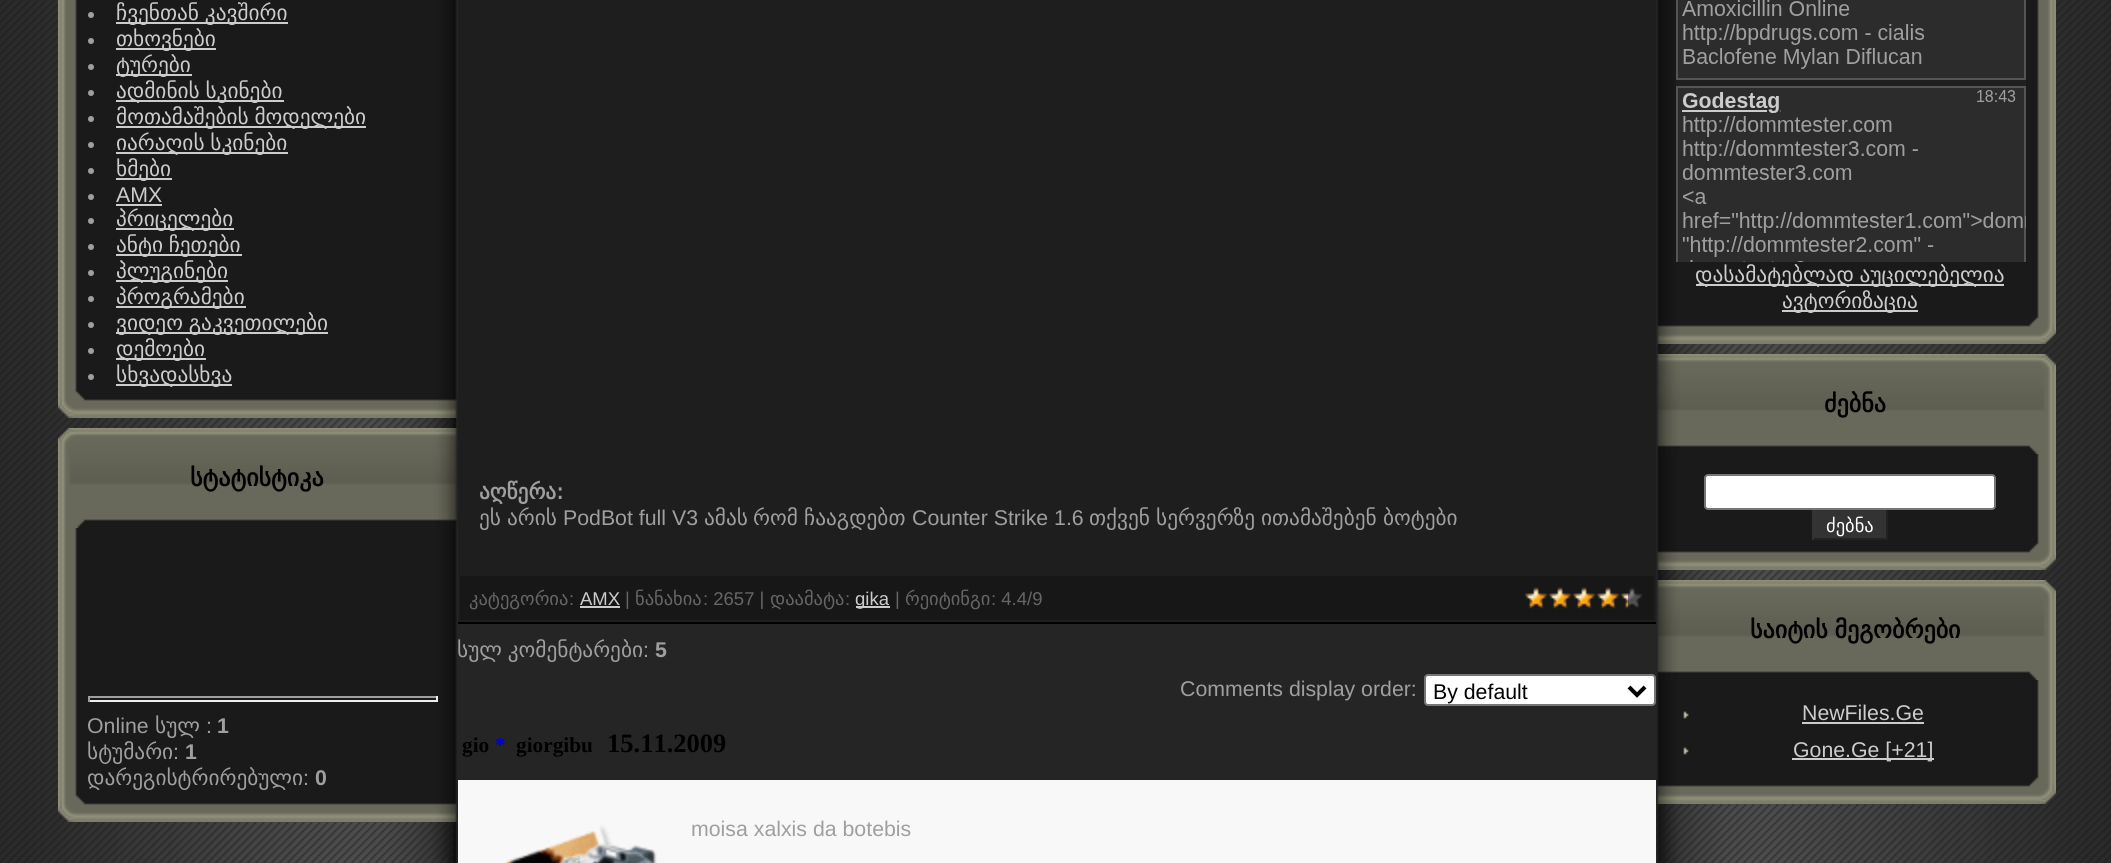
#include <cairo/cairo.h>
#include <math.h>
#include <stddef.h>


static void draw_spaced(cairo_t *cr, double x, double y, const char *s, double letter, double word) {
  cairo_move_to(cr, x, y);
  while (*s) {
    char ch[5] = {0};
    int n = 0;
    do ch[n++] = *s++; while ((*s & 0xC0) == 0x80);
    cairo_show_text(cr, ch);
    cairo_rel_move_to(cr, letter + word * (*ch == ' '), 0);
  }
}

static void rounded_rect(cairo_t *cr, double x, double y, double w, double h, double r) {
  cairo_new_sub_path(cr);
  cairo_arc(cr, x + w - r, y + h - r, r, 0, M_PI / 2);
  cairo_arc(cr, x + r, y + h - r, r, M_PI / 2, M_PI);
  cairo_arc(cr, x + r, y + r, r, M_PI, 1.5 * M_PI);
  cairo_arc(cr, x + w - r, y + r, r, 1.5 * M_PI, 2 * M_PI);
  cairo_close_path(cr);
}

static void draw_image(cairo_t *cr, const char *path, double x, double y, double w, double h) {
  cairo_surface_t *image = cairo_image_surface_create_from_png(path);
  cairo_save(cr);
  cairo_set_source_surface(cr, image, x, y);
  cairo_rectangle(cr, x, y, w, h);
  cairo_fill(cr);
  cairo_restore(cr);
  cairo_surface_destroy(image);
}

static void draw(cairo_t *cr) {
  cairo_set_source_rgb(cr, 1, 1, 1);
  cairo_paint(cr);
  draw_image(cr, "images/1.png", 0, 0, 2111, 863);
  draw_image(cr, "images/2.png", 58, 0, 399, 418);
  cairo_set_source_rgb(cr, 159 / 255.0, 159 / 255.0, 159 / 255.0);
  cairo_arc(cr, 91, 15, 3, 0, 2 * M_PI);
  cairo_fill(cr);
  cairo_set_source_rgb(cr, 204 / 255.0, 204 / 255.0, 204 / 255.0);
  cairo_rectangle(cr, 116, 22, 172, 2);
  cairo_fill(cr);
  cairo_set_source_rgb(cr, 159 / 255.0, 159 / 255.0, 159 / 255.0);
  cairo_arc(cr, 91, 41, 3, 0, 2 * M_PI);
  cairo_fill(cr);
  cairo_set_source_rgb(cr, 204 / 255.0, 204 / 255.0, 204 / 255.0);
  cairo_rectangle(cr, 116, 48, 100, 2);
  cairo_fill(cr);
  cairo_set_source_rgb(cr, 159 / 255.0, 159 / 255.0, 159 / 255.0);
  cairo_arc(cr, 91, 67, 3, 0, 2 * M_PI);
  cairo_fill(cr);
  cairo_set_source_rgb(cr, 204 / 255.0, 204 / 255.0, 204 / 255.0);
  cairo_rectangle(cr, 116, 74, 76, 2);
  cairo_fill(cr);
  cairo_set_source_rgb(cr, 159 / 255.0, 159 / 255.0, 159 / 255.0);
  cairo_arc(cr, 91, 93, 3, 0, 2 * M_PI);
  cairo_fill(cr);
  cairo_set_source_rgb(cr, 204 / 255.0, 204 / 255.0, 204 / 255.0);
  cairo_rectangle(cr, 116, 100, 168, 2);
  cairo_fill(cr);
  cairo_set_source_rgb(cr, 159 / 255.0, 159 / 255.0, 159 / 255.0);
  cairo_arc(cr, 91, 119, 3, 0, 2 * M_PI);
  cairo_fill(cr);
  cairo_set_source_rgb(cr, 204 / 255.0, 204 / 255.0, 204 / 255.0);
  cairo_rectangle(cr, 116, 126, 250, 2);
  cairo_fill(cr);
  cairo_set_source_rgb(cr, 159 / 255.0, 159 / 255.0, 159 / 255.0);
  cairo_arc(cr, 91, 145, 3, 0, 2 * M_PI);
  cairo_fill(cr);
  cairo_set_source_rgb(cr, 204 / 255.0, 204 / 255.0, 204 / 255.0);
  cairo_rectangle(cr, 116, 152, 172, 2);
  cairo_fill(cr);
  cairo_set_source_rgb(cr, 159 / 255.0, 159 / 255.0, 159 / 255.0);
  cairo_arc(cr, 91, 171, 3, 0, 2 * M_PI);
  cairo_fill(cr);
  cairo_set_source_rgb(cr, 204 / 255.0, 204 / 255.0, 204 / 255.0);
  cairo_rectangle(cr, 116, 178, 56, 2);
  cairo_fill(cr);
  cairo_set_source_rgb(cr, 159 / 255.0, 159 / 255.0, 159 / 255.0);
  cairo_arc(cr, 91, 197, 3, 0, 2 * M_PI);
  cairo_fill(cr);
  cairo_set_source_rgb(cr, 204 / 255.0, 204 / 255.0, 204 / 255.0);
  cairo_rectangle(cr, 116, 204, 46, 2);
  cairo_fill(cr);
  cairo_set_source_rgb(cr, 159 / 255.0, 159 / 255.0, 159 / 255.0);
  cairo_arc(cr, 91, 221, 3, 0, 2 * M_PI);
  cairo_fill(cr);
  cairo_set_source_rgb(cr, 204 / 255.0, 204 / 255.0, 204 / 255.0);
  cairo_rectangle(cr, 116, 228, 118, 2);
  cairo_fill(cr);
  cairo_set_source_rgb(cr, 159 / 255.0, 159 / 255.0, 159 / 255.0);
  cairo_arc(cr, 91, 247, 3, 0, 2 * M_PI);
  cairo_fill(cr);
  cairo_set_source_rgb(cr, 204 / 255.0, 204 / 255.0, 204 / 255.0);
  cairo_rectangle(cr, 116, 254, 126, 2);
  cairo_fill(cr);
  cairo_set_source_rgb(cr, 159 / 255.0, 159 / 255.0, 159 / 255.0);
  cairo_arc(cr, 91, 273, 3, 0, 2 * M_PI);
  cairo_fill(cr);
  cairo_set_source_rgb(cr, 204 / 255.0, 204 / 255.0, 204 / 255.0);
  cairo_rectangle(cr, 116, 280, 112, 2);
  cairo_fill(cr);
  cairo_set_source_rgb(cr, 159 / 255.0, 159 / 255.0, 159 / 255.0);
  cairo_arc(cr, 91, 299, 3, 0, 2 * M_PI);
  cairo_fill(cr);
  cairo_set_source_rgb(cr, 204 / 255.0, 204 / 255.0, 204 / 255.0);
  cairo_rectangle(cr, 116, 306, 130, 2);
  cairo_fill(cr);
  cairo_set_source_rgb(cr, 159 / 255.0, 159 / 255.0, 159 / 255.0);
  cairo_arc(cr, 91, 325, 3, 0, 2 * M_PI);
  cairo_fill(cr);
  cairo_set_source_rgb(cr, 204 / 255.0, 204 / 255.0, 204 / 255.0);
  cairo_rectangle(cr, 116, 332, 212, 2);
  cairo_fill(cr);
  cairo_set_source_rgb(cr, 159 / 255.0, 159 / 255.0, 159 / 255.0);
  cairo_arc(cr, 91, 351, 3, 0, 2 * M_PI);
  cairo_fill(cr);
  cairo_set_source_rgb(cr, 204 / 255.0, 204 / 255.0, 204 / 255.0);
  cairo_rectangle(cr, 116, 358, 90, 2);
  cairo_fill(cr);
  cairo_set_source_rgb(cr, 159 / 255.0, 159 / 255.0, 159 / 255.0);
  cairo_arc(cr, 91, 377, 3, 0, 2 * M_PI);
  cairo_fill(cr);
  cairo_set_source_rgb(cr, 204 / 255.0, 204 / 255.0, 204 / 255.0);
  cairo_rectangle(cr, 116, 384, 116, 2);
  cairo_fill(cr);
  draw_image(cr, "images/3.png", 58, 428, 399, 100);
  draw_image(cr, "images/4.png", 58, 528, 399, 294);
  cairo_set_source_rgb(cr, 159 / 255.0, 159 / 255.0, 159 / 255.0);
  cairo_rectangle(cr, 88, 696, 350, 2);
  cairo_fill(cr);
  cairo_set_source_rgb(cr, 238 / 255.0, 238 / 255.0, 238 / 255.0);
  cairo_rectangle(cr, 436, 696, 2, 6);
  cairo_fill(cr);
  cairo_rectangle(cr, 88, 700, 350, 2);
  cairo_fill(cr);
  cairo_set_source_rgb(cr, 159 / 255.0, 159 / 255.0, 159 / 255.0);
  cairo_rectangle(cr, 88, 696, 2, 6);
  cairo_fill(cr);
  cairo_set_source_rgb(cr, 30 / 255.0, 30 / 255.0, 30 / 255.0);
  cairo_rectangle(cr, 458, 0, 1198, 622);
  cairo_fill(cr);
  cairo_set_source_rgb(cr, 0, 0, 0);
  cairo_rectangle(cr, 458, 622, 1198, 2);
  cairo_fill(cr);
  cairo_set_source_rgb(cr, 23 / 255.0, 23 / 255.0, 23 / 255.0);
  cairo_rectangle(cr, 460, 576, 1194, 44);
  cairo_fill(cr);
  cairo_set_source_rgb(cr, 204 / 255.0, 204 / 255.0, 204 / 255.0);
  cairo_rectangle(cr, 580, 606, 40, 2);
  cairo_fill(cr);
  cairo_rectangle(cr, 856, 606, 34, 2);
  cairo_fill(cr);
  draw_image(cr, "images/5.png", 1525, 587, 118, 21);
  draw_image(cr, "images/6.png", 1524, 587, 104, 22);
  cairo_set_source_rgb(cr, 1, 1, 1);
  rounded_rect(cr, 1425, 675, 230, 30, 3);
  cairo_fill_preserve(cr);
  cairo_set_source_rgb(cr, 118 / 255.0, 118 / 255.0, 118 / 255.0);
  cairo_stroke(cr);
  cairo_new_path(cr);
  cairo_move_to(cr, 1629, 687);
  cairo_line_to(cr, 1637, 695);
  cairo_line_to(cr, 1645, 687);
  cairo_set_source_rgb(cr, 0, 0, 0);
  cairo_set_line_width(cr, 4);
  cairo_stroke(cr);
  cairo_set_source_rgb(cr, 248 / 255.0, 248 / 255.0, 248 / 255.0);
  cairo_rectangle(cr, 458, 780, 1198, 83);
  cairo_fill(cr);
  draw_image(cr, "images/7.png", 503, 825, 154, 38);
  draw_image(cr, "images/8.png", 1657, 0, 399, 344);
  draw_image(cr, "images/9.png", 1676, 0, 350, 262);
  cairo_set_source_rgb(cr, 204 / 255.0, 204 / 255.0, 204 / 255.0);
  cairo_rectangle(cr, 1696, 284, 308, 2);
  cairo_fill(cr);
  cairo_rectangle(cr, 1782, 310, 136, 2);
  cairo_fill(cr);
  draw_image(cr, "images/10.png", 1657, 354, 399, 100);
  draw_image(cr, "images/11.png", 1657, 454, 399, 116);
  cairo_set_source_rgb(cr, 1, 1, 1);
  rounded_rect(cr, 1705, 475, 290, 34, 3);
  cairo_fill_preserve(cr);
  cairo_set_source_rgb(cr, 118 / 255.0, 118 / 255.0, 118 / 255.0);
  cairo_set_line_width(cr, 2);
  cairo_stroke(cr);
  cairo_set_source_rgb(cr, 51 / 255.0, 51 / 255.0, 51 / 255.0);
  cairo_rectangle(cr, 1814, 510, 72, 28);
  cairo_fill(cr);
  cairo_set_source_rgb(cr, 34 / 255.0, 34 / 255.0, 34 / 255.0);
  cairo_rectangle(cr, 1886, 510, 2, 30);
  cairo_fill(cr);
  cairo_rectangle(cr, 1812, 538, 76, 2);
  cairo_fill(cr);
  cairo_set_source_rgb(cr, 51 / 255.0, 51 / 255.0, 51 / 255.0);
  cairo_rectangle(cr, 1812, 510, 2, 30);
  cairo_fill(cr);
  draw_image(cr, "images/12.png", 1657, 580, 399, 100);
  draw_image(cr, "images/13.png", 1657, 680, 399, 124);
  draw_image(cr, "images/14.png", 1683, 711, 6, 8);
  cairo_set_source_rgb(cr, 204 / 255.0, 204 / 255.0, 204 / 255.0);
  cairo_rectangle(cr, 1802, 722, 122, 2);
  cairo_fill(cr);
  draw_image(cr, "images/14.png", 1683, 747, 6, 8);
  cairo_rectangle(cr, 1792, 758, 142, 2);
  cairo_fill(cr);
  cairo_select_font_face(cr, "DejaVu Sans", CAIRO_FONT_SLANT_NORMAL, CAIRO_FONT_WEIGHT_NORMAL);
  cairo_set_font_size(cr, 21.3);
  draw_spaced(cr, 116, 20, "ჩვენთან კავშირი", 0, -1);
  cairo_move_to(cr, 116, 46);
  cairo_show_text(cr, "თხოვნები");
  cairo_move_to(cr, 116, 72);
  cairo_show_text(cr, "ტურები");
  draw_spaced(cr, 116, 98, "ადმინის სკინები", 0, -1);
  draw_spaced(cr, 116, 124, "მოთამაშების მოდელები", 0, -1);
  draw_spaced(cr, 116, 150, "იარაღის სკინები", 0, -1);
  cairo_move_to(cr, 116, 176);
  cairo_show_text(cr, "ხმები");
  cairo_select_font_face(cr, "Liberation Sans", CAIRO_FONT_SLANT_NORMAL, CAIRO_FONT_WEIGHT_NORMAL);
  cairo_move_to(cr, 116, 202);
  cairo_show_text(cr, "AMX");
  cairo_select_font_face(cr, "DejaVu Sans", CAIRO_FONT_SLANT_NORMAL, CAIRO_FONT_WEIGHT_NORMAL);
  cairo_move_to(cr, 116, 226);
  cairo_show_text(cr, "პრიცელები");
  draw_spaced(cr, 116, 252, "ანტი ჩეთები", 0, -1);
  cairo_move_to(cr, 116, 278);
  cairo_show_text(cr, "პლუგინები");
  cairo_move_to(cr, 116, 304);
  cairo_show_text(cr, "პროგრამები");
  draw_spaced(cr, 116, 330, "ვიდეო გაკვეთილები", 0, -1);
  cairo_move_to(cr, 116, 356);
  cairo_show_text(cr, "დემოები");
  cairo_move_to(cr, 116, 382);
  cairo_show_text(cr, "სხვადასხვა");
  cairo_select_font_face(cr, "DejaVu Sans", CAIRO_FONT_SLANT_NORMAL, CAIRO_FONT_WEIGHT_BOLD);
  cairo_set_font_size(cr, 24);
  cairo_set_source_rgb(cr, 0, 0, 0);
  cairo_move_to(cr, 190, 486);
  cairo_show_text(cr, "სტატისტიკა");
  cairo_select_font_face(cr, "Liberation Sans", CAIRO_FONT_SLANT_NORMAL, CAIRO_FONT_WEIGHT_NORMAL);
  cairo_set_font_size(cr, 21.3);
  cairo_set_source_rgb(cr, 159 / 255.0, 159 / 255.0, 159 / 255.0);
  cairo_move_to(cr, 87, 733);
  cairo_show_text(cr, "Online");
  cairo_select_font_face(cr, "DejaVu Sans", CAIRO_FONT_SLANT_NORMAL, CAIRO_FONT_WEIGHT_NORMAL);
  cairo_move_to(cr, 155, 733);
  cairo_show_text(cr, "სულ");
  cairo_select_font_face(cr, "Liberation Sans", CAIRO_FONT_SLANT_NORMAL, CAIRO_FONT_WEIGHT_NORMAL);
  cairo_move_to(cr, 206, 733);
  cairo_show_text(cr, ":");
  cairo_select_font_face(cr, "Liberation Sans", CAIRO_FONT_SLANT_NORMAL, CAIRO_FONT_WEIGHT_BOLD);
  cairo_move_to(cr, 217, 733);
  cairo_show_text(cr, "1");
  cairo_select_font_face(cr, "DejaVu Sans", CAIRO_FONT_SLANT_NORMAL, CAIRO_FONT_WEIGHT_NORMAL);
  cairo_move_to(cr, 87, 759);
  cairo_show_text(cr, "სტუმარი");
  cairo_select_font_face(cr, "Liberation Sans", CAIRO_FONT_SLANT_NORMAL, CAIRO_FONT_WEIGHT_NORMAL);
  cairo_move_to(cr, 173, 759);
  cairo_show_text(cr, ":");
  cairo_select_font_face(cr, "Liberation Sans", CAIRO_FONT_SLANT_NORMAL, CAIRO_FONT_WEIGHT_BOLD);
  cairo_move_to(cr, 185, 759);
  cairo_show_text(cr, "1");
  cairo_select_font_face(cr, "DejaVu Sans", CAIRO_FONT_SLANT_NORMAL, CAIRO_FONT_WEIGHT_NORMAL);
  cairo_move_to(cr, 87, 785);
  cairo_show_text(cr, "დარეგისტრირებული");
  cairo_select_font_face(cr, "Liberation Sans", CAIRO_FONT_SLANT_NORMAL, CAIRO_FONT_WEIGHT_NORMAL);
  cairo_move_to(cr, 303, 785);
  cairo_show_text(cr, ":");
  cairo_select_font_face(cr, "Liberation Sans", CAIRO_FONT_SLANT_NORMAL, CAIRO_FONT_WEIGHT_BOLD);
  cairo_move_to(cr, 315, 785);
  cairo_show_text(cr, "0");
  cairo_select_font_face(cr, "DejaVu Sans", CAIRO_FONT_SLANT_NORMAL, CAIRO_FONT_WEIGHT_BOLD);
  cairo_move_to(cr, 479, 499);
  cairo_show_text(cr, "აღწერა:");
  cairo_select_font_face(cr, "DejaVu Sans", CAIRO_FONT_SLANT_NORMAL, CAIRO_FONT_WEIGHT_NORMAL);
  cairo_move_to(cr, 479, 525);
  cairo_show_text(cr, "ეს");
  cairo_move_to(cr, 507, 525);
  cairo_show_text(cr, "არის");
  cairo_select_font_face(cr, "Liberation Sans", CAIRO_FONT_SLANT_NORMAL, CAIRO_FONT_WEIGHT_NORMAL);
  cairo_move_to(cr, 563, 525);
  cairo_show_text(cr, "PodBot full V3");
  cairo_select_font_face(cr, "DejaVu Sans", CAIRO_FONT_SLANT_NORMAL, CAIRO_FONT_WEIGHT_NORMAL);
  cairo_move_to(cr, 704, 525);
  cairo_show_text(cr, "ამას");
  cairo_move_to(cr, 753, 525);
  cairo_show_text(cr, "რომ");
  cairo_move_to(cr, 804, 525);
  cairo_show_text(cr, "ჩააგდებთ");
  cairo_select_font_face(cr, "Liberation Sans", CAIRO_FONT_SLANT_NORMAL, CAIRO_FONT_WEIGHT_NORMAL);
  cairo_move_to(cr, 912, 525);
  cairo_show_text(cr, "Counter Strike 1.6");
  cairo_select_font_face(cr, "DejaVu Sans", CAIRO_FONT_SLANT_NORMAL, CAIRO_FONT_WEIGHT_NORMAL);
  cairo_move_to(cr, 1089, 525);
  cairo_show_text(cr, "თქვენ");
  cairo_move_to(cr, 1156, 525);
  cairo_show_text(cr, "სერვერზე");
  cairo_move_to(cr, 1261, 525);
  cairo_show_text(cr, "ითამაშებენ");
  cairo_move_to(cr, 1383, 525);
  cairo_show_text(cr, "ბოტები");
  cairo_set_font_size(cr, 18.5);
  cairo_set_source_rgb(cr, 102 / 255.0, 102 / 255.0, 102 / 255.0);
  cairo_move_to(cr, 469, 605);
  cairo_show_text(cr, "კატეგორია");
  cairo_select_font_face(cr, "Liberation Sans", CAIRO_FONT_SLANT_NORMAL, CAIRO_FONT_WEIGHT_NORMAL);
  cairo_move_to(cr, 569, 605);
  cairo_show_text(cr, ":");
  cairo_set_source_rgb(cr, 204 / 255.0, 204 / 255.0, 204 / 255.0);
  cairo_move_to(cr, 580, 605);
  cairo_show_text(cr, "AMX");
  cairo_set_source_rgb(cr, 102 / 255.0, 102 / 255.0, 102 / 255.0);
  cairo_move_to(cr, 625, 605);
  cairo_show_text(cr, "|");
  cairo_select_font_face(cr, "DejaVu Sans", CAIRO_FONT_SLANT_NORMAL, CAIRO_FONT_WEIGHT_NORMAL);
  cairo_move_to(cr, 635, 605);
  cairo_show_text(cr, "ნანახია");
  cairo_select_font_face(cr, "Liberation Sans", CAIRO_FONT_SLANT_NORMAL, CAIRO_FONT_WEIGHT_NORMAL);
  cairo_move_to(cr, 703, 605);
  cairo_show_text(cr, ": 2657 |");
  cairo_select_font_face(cr, "DejaVu Sans", CAIRO_FONT_SLANT_NORMAL, CAIRO_FONT_WEIGHT_NORMAL);
  cairo_move_to(cr, 770, 605);
  cairo_show_text(cr, "დაამატა");
  cairo_select_font_face(cr, "Liberation Sans", CAIRO_FONT_SLANT_NORMAL, CAIRO_FONT_WEIGHT_NORMAL);
  cairo_move_to(cr, 845, 605);
  cairo_show_text(cr, ":");
  cairo_set_source_rgb(cr, 204 / 255.0, 204 / 255.0, 204 / 255.0);
  cairo_move_to(cr, 855, 605);
  cairo_show_text(cr, "gika");
  cairo_set_source_rgb(cr, 102 / 255.0, 102 / 255.0, 102 / 255.0);
  cairo_move_to(cr, 895, 605);
  cairo_show_text(cr, "|");
  cairo_select_font_face(cr, "DejaVu Sans", CAIRO_FONT_SLANT_NORMAL, CAIRO_FONT_WEIGHT_NORMAL);
  cairo_move_to(cr, 905, 605);
  cairo_show_text(cr, "რეიტინგი");
  cairo_select_font_face(cr, "Liberation Sans", CAIRO_FONT_SLANT_NORMAL, CAIRO_FONT_WEIGHT_NORMAL);
  cairo_move_to(cr, 991, 605);
  cairo_show_text(cr, ": 4.4/9");
  cairo_select_font_face(cr, "DejaVu Sans", CAIRO_FONT_SLANT_NORMAL, CAIRO_FONT_WEIGHT_NORMAL);
  cairo_set_font_size(cr, 21.3);
  cairo_set_source_rgb(cr, 159 / 255.0, 159 / 255.0, 159 / 255.0);
  draw_spaced(cr, 457, 657, "სულ კომენტარები", 0, -1);
  cairo_select_font_face(cr, "Liberation Sans", CAIRO_FONT_SLANT_NORMAL, CAIRO_FONT_WEIGHT_NORMAL);
  cairo_move_to(cr, 643, 657);
  cairo_show_text(cr, ":");
  cairo_select_font_face(cr, "Liberation Sans", CAIRO_FONT_SLANT_NORMAL, CAIRO_FONT_WEIGHT_BOLD);
  cairo_move_to(cr, 655, 657);
  cairo_show_text(cr, "5");
  cairo_select_font_face(cr, "Liberation Sans", CAIRO_FONT_SLANT_NORMAL, CAIRO_FONT_WEIGHT_NORMAL);
  cairo_move_to(cr, 1180, 696);
  cairo_show_text(cr, "Comments display order:");
  cairo_set_source_rgb(cr, 0, 0, 0);
  cairo_move_to(cr, 1433, 699);
  cairo_show_text(cr, "By default");
  cairo_select_font_face(cr, "Liberation Serif", CAIRO_FONT_SLANT_NORMAL, CAIRO_FONT_WEIGHT_BOLD);
  cairo_move_to(cr, 462, 752);
  cairo_show_text(cr, "gio");
  cairo_set_source_rgb(cr, 0, 0, 205 / 255.0);
  cairo_move_to(cr, 495, 752);
  cairo_show_text(cr, "*");
  cairo_set_source_rgb(cr, 0, 0, 0);
  cairo_move_to(cr, 516, 752);
  cairo_show_text(cr, "giorgibu");
  cairo_set_font_size(cr, 26.5);
  cairo_move_to(cr, 607, 752);
  cairo_show_text(cr, "15.11.2009");
  cairo_select_font_face(cr, "Liberation Sans", CAIRO_FONT_SLANT_NORMAL, CAIRO_FONT_WEIGHT_NORMAL);
  cairo_set_font_size(cr, 21.3);
  cairo_set_source_rgb(cr, 159 / 255.0, 159 / 255.0, 159 / 255.0);
  cairo_move_to(cr, 691, 836);
  cairo_show_text(cr, "moisa xalxis da botebis");
  cairo_select_font_face(cr, "DejaVu Sans", CAIRO_FONT_SLANT_NORMAL, CAIRO_FONT_WEIGHT_NORMAL);
  cairo_set_source_rgb(cr, 204 / 255.0, 204 / 255.0, 204 / 255.0);
  draw_spaced(cr, 1695, 282, "დასამატებლად აუცილებელია", 0, -1);
  cairo_move_to(cr, 1782, 308);
  cairo_show_text(cr, "ავტორიზაცია");
  cairo_select_font_face(cr, "DejaVu Sans", CAIRO_FONT_SLANT_NORMAL, CAIRO_FONT_WEIGHT_BOLD);
  cairo_set_font_size(cr, 24);
  cairo_set_source_rgb(cr, 0, 0, 0);
  cairo_move_to(cr, 1824, 412);
  cairo_show_text(cr, "ძებნა");
  cairo_select_font_face(cr, "DejaVu Sans", CAIRO_FONT_SLANT_NORMAL, CAIRO_FONT_WEIGHT_NORMAL);
  cairo_set_font_size(cr, 18.5);
  cairo_set_source_rgb(cr, 1, 1, 1);
  cairo_move_to(cr, 1826, 532);
  cairo_show_text(cr, "ძებნა");
  cairo_select_font_face(cr, "DejaVu Sans", CAIRO_FONT_SLANT_NORMAL, CAIRO_FONT_WEIGHT_BOLD);
  cairo_set_font_size(cr, 24);
  cairo_set_source_rgb(cr, 0, 0, 0);
  draw_spaced(cr, 1750, 638, "საიტის მეგობრები", 0, -1);
  cairo_select_font_face(cr, "Liberation Sans", CAIRO_FONT_SLANT_NORMAL, CAIRO_FONT_WEIGHT_NORMAL);
  cairo_set_font_size(cr, 21.3);
  cairo_set_source_rgb(cr, 204 / 255.0, 204 / 255.0, 204 / 255.0);
  cairo_move_to(cr, 1802, 720);
  cairo_show_text(cr, "NewFiles.Ge");
  cairo_move_to(cr, 1793, 757);
  cairo_show_text(cr, "Gone.Ge [+21]");
}

int main(void) {
  cairo_surface_t *surface = cairo_image_surface_create(CAIRO_FORMAT_RGB24, 2111, 863);
  cairo_t *cr = cairo_create(surface);
  cairo_font_options_t *options = cairo_font_options_create();
  cairo_font_options_set_hint_metrics(options, CAIRO_HINT_METRICS_OFF);
  cairo_font_options_set_hint_style(options, CAIRO_HINT_STYLE_NONE);
  cairo_set_font_options(cr, options);
  cairo_set_miter_limit(cr, 4);
  draw(cr);
  cairo_surface_write_to_png(surface, "out.png");
  cairo_font_options_destroy(options);
  cairo_destroy(cr);
  cairo_surface_destroy(surface);
  return 0;
}
